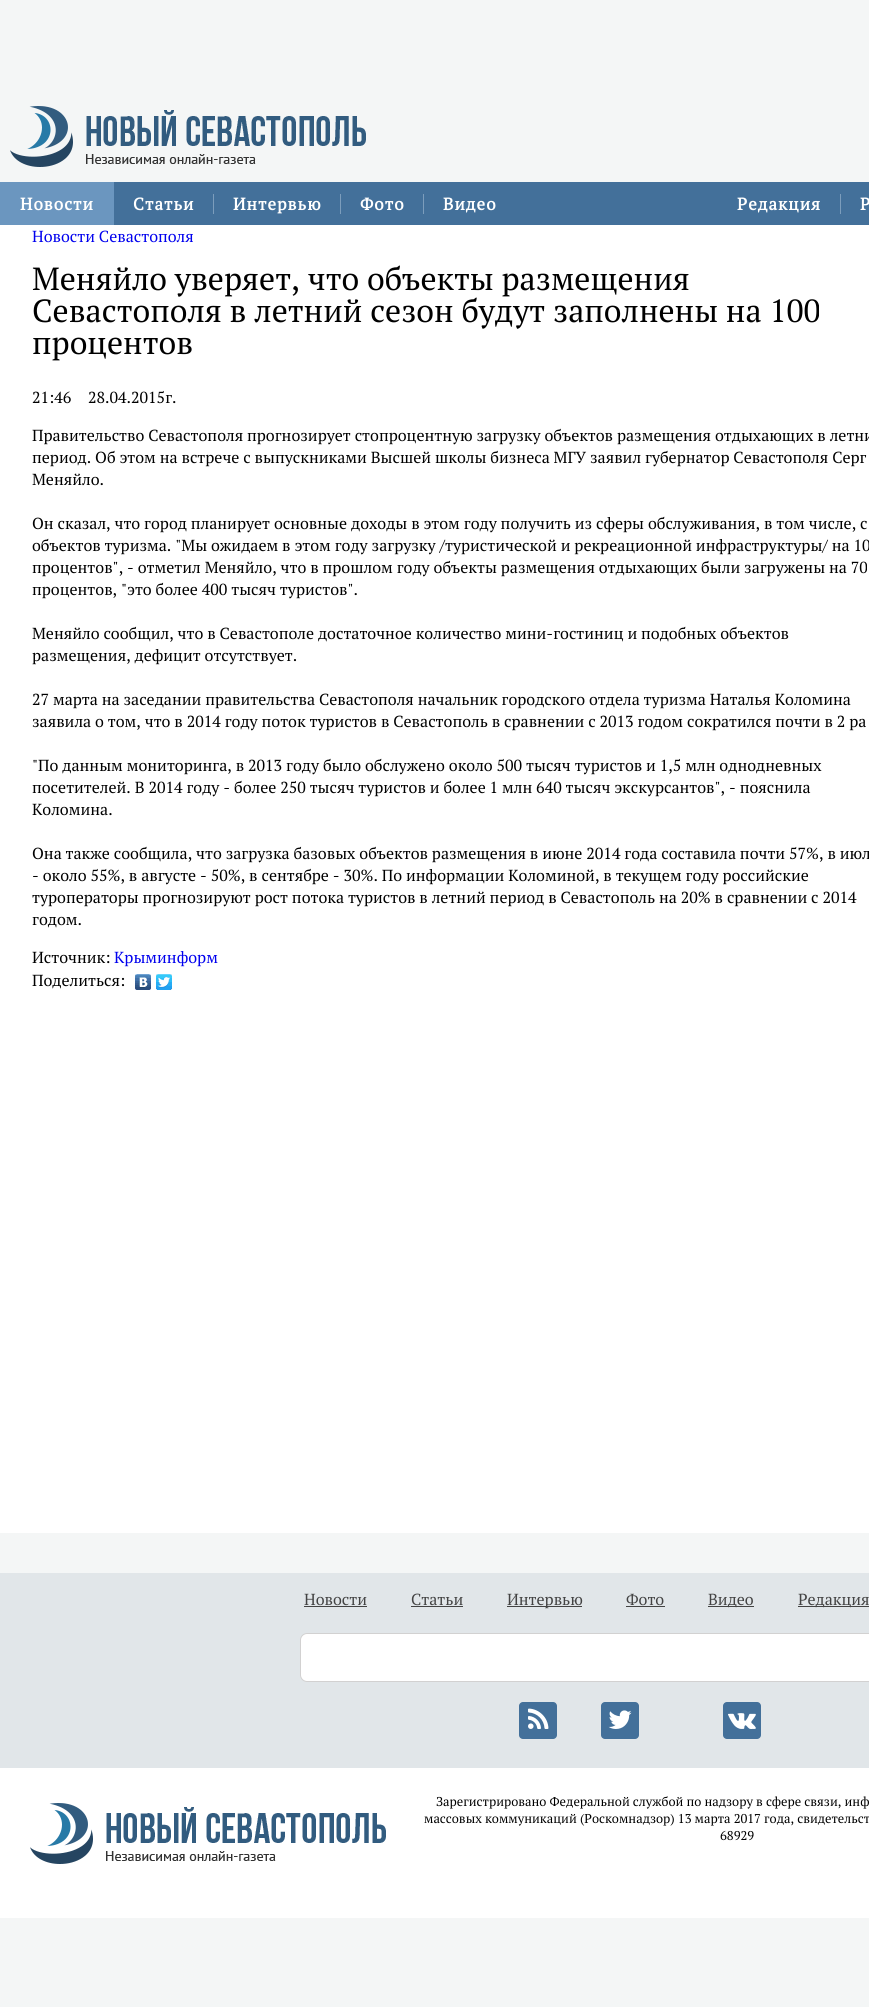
#include <cairo/cairo.h>
#include <math.h>
#include <stddef.h>


static void draw_spaced(cairo_t *cr, double x, double y, const char *s, double letter, double word) {
  cairo_move_to(cr, x, y);
  while (*s) {
    char ch[5] = {0};
    int n = 0;
    do ch[n++] = *s++; while ((*s & 0xC0) == 0x80);
    cairo_show_text(cr, ch);
    cairo_rel_move_to(cr, letter + word * (*ch == ' '), 0);
  }
}

static void rounded_rect(cairo_t *cr, double x, double y, double w, double h, double r) {
  cairo_new_sub_path(cr);
  cairo_arc(cr, x + w - r, y + h - r, r, 0, M_PI / 2);
  cairo_arc(cr, x + r, y + h - r, r, M_PI / 2, M_PI);
  cairo_arc(cr, x + r, y + r, r, M_PI, 1.5 * M_PI);
  cairo_arc(cr, x + w - r, y + r, r, 1.5 * M_PI, 2 * M_PI);
  cairo_close_path(cr);
}

static void draw_image(cairo_t *cr, const char *path, double x, double y, double w, double h) {
  cairo_surface_t *image = cairo_image_surface_create_from_png(path);
  cairo_save(cr);
  cairo_set_source_surface(cr, image, x, y);
  cairo_rectangle(cr, x, y, w, h);
  cairo_fill(cr);
  cairo_restore(cr);
  cairo_surface_destroy(image);
}

static void draw(cairo_t *cr) {
  cairo_set_source_rgb(cr, 244 / 255.0, 246 / 255.0, 246 / 255.0);
  cairo_paint(cr);
  draw_image(cr, "images/1.png", 10, 106, 356, 61);
  cairo_set_source_rgb(cr, 67 / 255.0, 112 / 255.0, 154 / 255.0);
  cairo_rectangle(cr, 114, 182, 755, 43);
  cairo_fill(cr);
  cairo_set_source_rgb(cr, 107 / 255.0, 150 / 255.0, 191 / 255.0);
  cairo_rectangle(cr, 0, 182, 114, 43);
  cairo_fill(cr);
  cairo_set_source_rgb(cr, 124 / 255.0, 157 / 255.0, 188 / 255.0);
  cairo_rectangle(cr, 213, 194, 1, 20);
  cairo_fill(cr);
  cairo_rectangle(cr, 340, 194, 1, 20);
  cairo_fill(cr);
  cairo_rectangle(cr, 423, 194, 1, 20);
  cairo_fill(cr);
  cairo_rectangle(cr, 840, 194, 1, 20);
  cairo_fill(cr);
  cairo_set_source_rgb(cr, 1, 1, 1);
  cairo_rectangle(cr, 0, 225, 869, 1308);
  cairo_fill(cr);
  draw_image(cr, "images/2.png", 135, 974, 16, 16);
  draw_image(cr, "images/3.png", 156, 974, 16, 16);
  cairo_set_source_rgb(cr, 225 / 255.0, 230 / 255.0, 233 / 255.0);
  cairo_rectangle(cr, 0, 1573, 869, 195);
  cairo_fill(cr);
  cairo_set_source_rgb(cr, 67 / 255.0, 67 / 255.0, 67 / 255.0);
  cairo_rectangle(cr, 304, 1606, 63, 1);
  cairo_fill(cr);
  cairo_rectangle(cr, 411, 1606, 52, 1);
  cairo_fill(cr);
  cairo_rectangle(cr, 507, 1606, 75, 1);
  cairo_fill(cr);
  cairo_rectangle(cr, 626, 1606, 39, 1);
  cairo_fill(cr);
  cairo_rectangle(cr, 708, 1606, 46, 1);
  cairo_fill(cr);
  cairo_rectangle(cr, 798, 1606, 71, 1);
  cairo_fill(cr);
  cairo_set_source_rgb(cr, 1, 1, 1);
  cairo_new_path(cr);
  cairo_move_to(cr, 307, 1633.5);
  cairo_line_to(cr, 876.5, 1633.5);
  cairo_line_to(cr, 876.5, 1681.5);
  cairo_line_to(cr, 307, 1681.5);
  cairo_curve_to(cr, 303.5, 1681.5, 300.5, 1678.5, 300.5, 1675);
  cairo_line_to(cr, 300.5, 1640);
  cairo_curve_to(cr, 300.5, 1636.5, 303.5, 1633.5, 307, 1633.5);
  cairo_close_path(cr);
  cairo_fill_preserve(cr);
  cairo_set_source_rgb(cr, 210 / 255.0, 209 / 255.0, 209 / 255.0);
  cairo_set_line_width(cr, 1);
  cairo_stroke(cr);
  cairo_set_source_rgb(cr, 67 / 255.0, 112 / 255.0, 154 / 255.0);
  rounded_rect(cr, 519, 1702, 38, 37, 4);
  cairo_fill(cr);
  draw_image(cr, "images/4.png", 528, 1708, 21, 21);
  rounded_rect(cr, 601, 1702, 38, 37, 4);
  cairo_fill(cr);
  draw_image(cr, "images/5.png", 608, 1710, 24, 19);
  rounded_rect(cr, 723, 1702, 38, 37, 4);
  cairo_fill(cr);
  draw_image(cr, "images/6.png", 728, 1713, 28, 16);
  cairo_set_source_rgb(cr, 1, 1, 1);
  cairo_rectangle(cr, 0, 1768, 869, 150);
  cairo_fill(cr);
  draw_image(cr, "images/7.png", 30, 1803, 356, 61);
  cairo_select_font_face(cr, "PT Serif", CAIRO_FONT_SLANT_NORMAL, CAIRO_FONT_WEIGHT_BOLD);
  cairo_set_font_size(cr, 17);
  draw_spaced(cr, 20, 210, "Новости", 1, 0);
  draw_spaced(cr, 133, 210, "Статьи", 1, 0);
  draw_spaced(cr, 233, 210, "Интервью", 1, 0);
  draw_spaced(cr, 360, 210, "Фото", 1, 0);
  draw_spaced(cr, 443, 210, "Видео", 1, 0);
  draw_spaced(cr, 737, 210, "Редакция", 1, 0);
  draw_spaced(cr, 860, 210, "Р", 1, 0);
  cairo_select_font_face(cr, "PT Serif", CAIRO_FONT_SLANT_NORMAL, CAIRO_FONT_WEIGHT_NORMAL);
  cairo_set_font_size(cr, 16);
  cairo_set_source_rgb(cr, 0, 0, 238 / 255.0);
  cairo_move_to(cr, 32, 242);
  cairo_show_text(cr, "Новости Севастополя");
  cairo_set_font_size(cr, 32);
  cairo_set_source_rgb(cr, 0, 0, 0);
  cairo_move_to(cr, 32, 290);
  cairo_show_text(cr, "Меняйло уверяет, что объекты размещения");
  cairo_move_to(cr, 32, 322);
  cairo_show_text(cr, "Севастополя в летний сезон будут заполнены на 100");
  cairo_move_to(cr, 32, 354);
  cairo_show_text(cr, "процентов");
  cairo_set_font_size(cr, 16);
  cairo_move_to(cr, 32, 403);
  cairo_show_text(cr, "21:46");
  cairo_move_to(cr, 88, 403);
  cairo_show_text(cr, "28.04.2015г.");
  cairo_move_to(cr, 32, 441);
  cairo_show_text(cr, "Правительство Севастополя прогнозирует стопроцентную загрузку объектов размещения отдыхающих в летни");
  cairo_move_to(cr, 32, 463);
  cairo_show_text(cr, "период. Об этом на встрече с выпускниками Высшей школы бизнеса МГУ заявил губернатор Севастополя Серг");
  cairo_move_to(cr, 32, 485);
  cairo_show_text(cr, "Меняйло.");
  cairo_move_to(cr, 32, 529);
  cairo_show_text(cr, "Он сказал, что город планирует основные доходы в этом году получить из сферы обслуживания, в том числе, с");
  cairo_move_to(cr, 32, 551);
  cairo_show_text(cr, "объектов туризма. \"Мы ожидаем в этом году загрузку /туристической и рекреационной инфраструктуры/ на 10");
  cairo_move_to(cr, 32, 573);
  cairo_show_text(cr, "процентов\", - отметил Меняйло, что в прошлом году объекты размещения отдыхающих были загружены на 70");
  cairo_move_to(cr, 32, 595);
  cairo_show_text(cr, "процентов, \"это более 400 тысяч туристов\".");
  cairo_move_to(cr, 32, 639);
  cairo_show_text(cr, "Меняйло сообщил, что в Севастополе достаточное количество мини-гостиниц и подобных объектов");
  cairo_move_to(cr, 32, 661);
  cairo_show_text(cr, "размещения, дефицит отсутствует.");
  cairo_move_to(cr, 32, 705);
  cairo_show_text(cr, "27 марта на заседании правительства Севастополя начальник городского отдела туризма Наталья Коломина");
  cairo_move_to(cr, 32, 727);
  cairo_show_text(cr, "заявила о том, что в 2014 году поток туристов в Севастополь в сравнении с 2013 годом сократился почти в 2 ра");
  cairo_move_to(cr, 32, 771);
  cairo_show_text(cr, "\"По данным мониторинга, в 2013 году было обслужено около 500 тысяч туристов и 1,5 млн однодневных");
  cairo_move_to(cr, 32, 793);
  cairo_show_text(cr, "посетителей. В 2014 году - более 250 тысяч туристов и более 1 млн 640 тысяч экскурсантов\", - пояснила");
  cairo_move_to(cr, 32, 815);
  cairo_show_text(cr, "Коломина.");
  cairo_move_to(cr, 32, 859);
  cairo_show_text(cr, "Она также сообщила, что загрузка базовых объектов размещения в июне 2014 года составила почти 57%, в июл");
  cairo_move_to(cr, 32, 881);
  cairo_show_text(cr, "- около 55%, в августе - 50%, в сентябре - 30%. По информации Коломиной, в текущем году российские");
  cairo_move_to(cr, 32, 903);
  cairo_show_text(cr, "туроператоры прогнозируют рост потока туристов в летний период в Севастополь на 20% в сравнении с 2014");
  cairo_move_to(cr, 32, 925);
  cairo_show_text(cr, "годом.");
  cairo_move_to(cr, 32, 963);
  cairo_show_text(cr, "Источник:");
  cairo_set_source_rgb(cr, 0, 0, 238 / 255.0);
  cairo_move_to(cr, 114, 963);
  cairo_show_text(cr, "Крыминформ");
  cairo_set_source_rgb(cr, 0, 0, 0);
  cairo_move_to(cr, 32, 986);
  cairo_show_text(cr, "Поделиться:");
  cairo_set_source_rgb(cr, 67 / 255.0, 67 / 255.0, 67 / 255.0);
  cairo_move_to(cr, 304, 1605);
  cairo_show_text(cr, "Новости");
  cairo_move_to(cr, 411, 1605);
  cairo_show_text(cr, "Статьи");
  cairo_move_to(cr, 507, 1605);
  cairo_show_text(cr, "Интервью");
  cairo_move_to(cr, 626, 1605);
  cairo_show_text(cr, "Фото");
  cairo_move_to(cr, 708, 1605);
  cairo_show_text(cr, "Видео");
  cairo_move_to(cr, 798, 1605);
  cairo_show_text(cr, "Редакция");
  cairo_set_font_size(cr, 12.8);
  cairo_set_source_rgb(cr, 0, 0, 0);
  cairo_move_to(cr, 436, 1806);
  cairo_show_text(cr, "Зарегистрировано Федеральной службой по надзору в сфере связи, инф");
  cairo_move_to(cr, 424, 1823);
  cairo_show_text(cr, "массовых коммуникаций (Роскомнадзор) 13 марта 2017 года, свидетельст");
  cairo_move_to(cr, 720, 1840);
  cairo_show_text(cr, "68929");
}

int main(void) {
  cairo_surface_t *surface = cairo_image_surface_create(CAIRO_FORMAT_RGB24, 869, 2007);
  cairo_t *cr = cairo_create(surface);
  cairo_font_options_t *options = cairo_font_options_create();
  cairo_font_options_set_hint_metrics(options, CAIRO_HINT_METRICS_OFF);
  cairo_font_options_set_hint_style(options, CAIRO_HINT_STYLE_NONE);
  cairo_set_font_options(cr, options);
  cairo_set_miter_limit(cr, 4);
  draw(cr);
  cairo_surface_write_to_png(surface, "out.png");
  cairo_font_options_destroy(options);
  cairo_destroy(cr);
  cairo_surface_destroy(surface);
  return 0;
}
